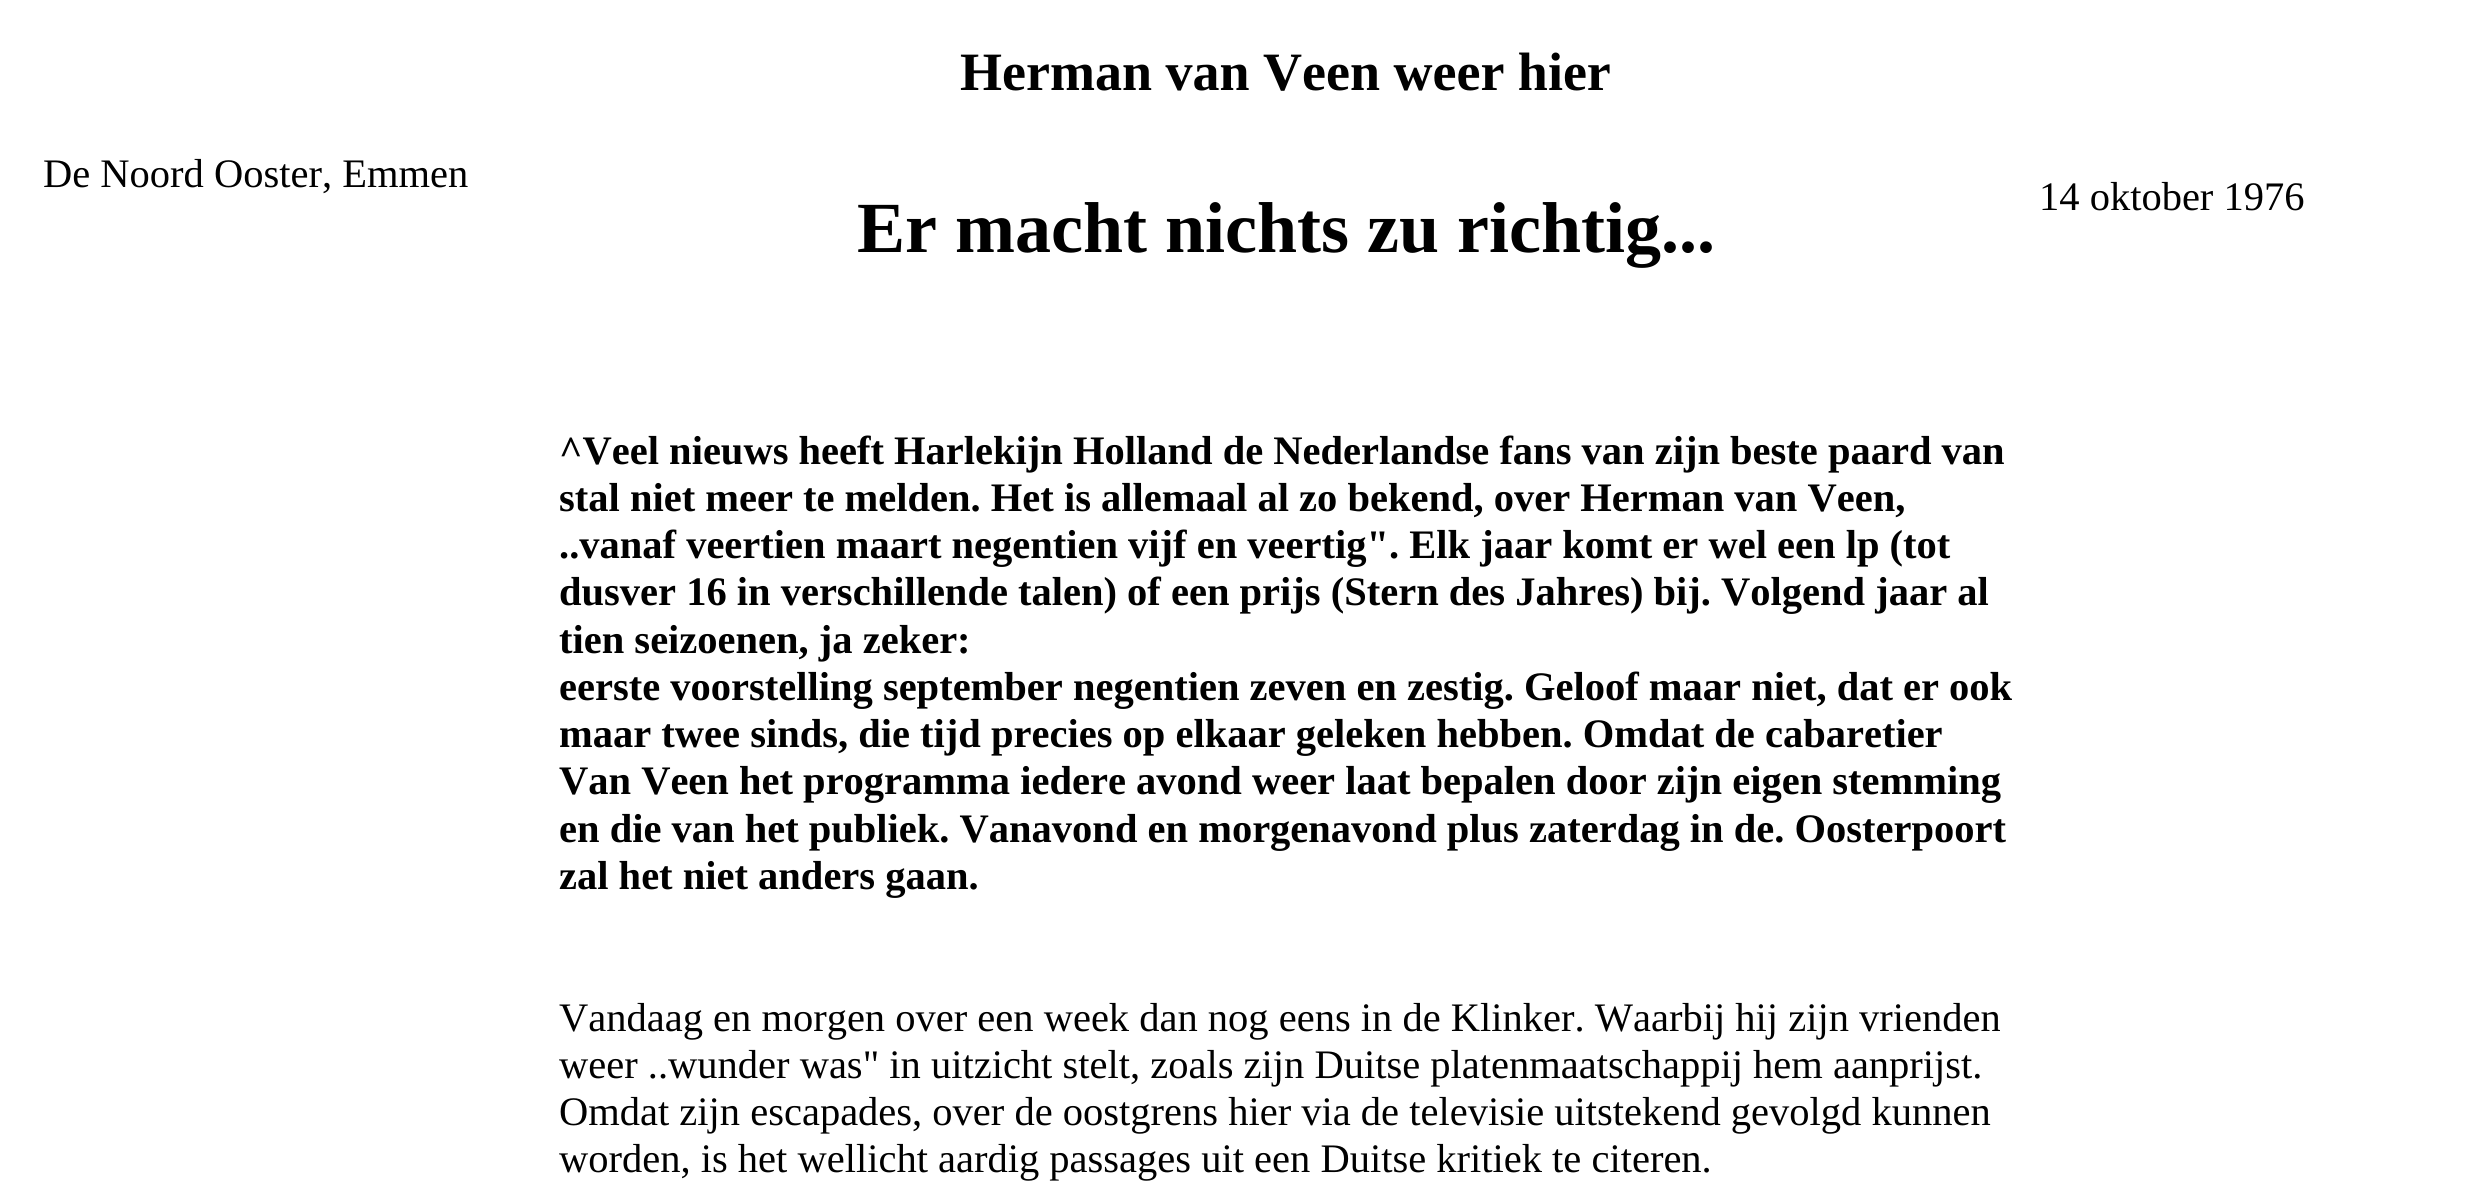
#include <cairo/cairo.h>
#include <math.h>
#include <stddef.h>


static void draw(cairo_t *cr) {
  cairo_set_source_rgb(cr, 1, 1, 1);
  cairo_paint(cr);
  cairo_select_font_face(cr, "Liberation Serif", CAIRO_FONT_SLANT_NORMAL, CAIRO_FONT_WEIGHT_NORMAL);
  cairo_set_font_size(cr, 40.5);
  cairo_set_source_rgb(cr, 0, 0, 0);
  cairo_move_to(cr, 43, 187);
  cairo_show_text(cr, "De Noord Ooster, Emmen");
  cairo_select_font_face(cr, "Liberation Serif", CAIRO_FONT_SLANT_NORMAL, CAIRO_FONT_WEIGHT_BOLD);
  cairo_set_font_size(cr, 54);
  cairo_move_to(cr, 960, 90);
  cairo_show_text(cr, "Herman van Veen weer hier");
  cairo_set_font_size(cr, 72);
  cairo_move_to(cr, 857, 252);
  cairo_show_text(cr, "Er macht nichts zu richtig...");
  cairo_select_font_face(cr, "Liberation Serif", CAIRO_FONT_SLANT_NORMAL, CAIRO_FONT_WEIGHT_NORMAL);
  cairo_set_font_size(cr, 40.5);
  cairo_move_to(cr, 2039, 210);
  cairo_show_text(cr, "14 oktober 1976");
  cairo_select_font_face(cr, "Liberation Serif", CAIRO_FONT_SLANT_NORMAL, CAIRO_FONT_WEIGHT_BOLD);
  cairo_move_to(cr, 559, 464);
  cairo_show_text(cr, "^Veel nieuws heeft Harlekijn Holland de Nederlandse fans van zijn beste paard van");
  cairo_move_to(cr, 559, 511);
  cairo_show_text(cr, "stal niet meer te melden. Het is allemaal al zo bekend, over Herman van Veen,");
  cairo_move_to(cr, 559, 558);
  cairo_show_text(cr, "..vanaf veertien maart negentien vijf en veertig\". Elk jaar komt er wel een lp (tot");
  cairo_move_to(cr, 559, 605);
  cairo_show_text(cr, "dusver 16 in verschillende talen) of een prijs (Stern des Jahres) bij. Volgend jaar al");
  cairo_move_to(cr, 559, 653);
  cairo_show_text(cr, "tien seizoenen, ja zeker:");
  cairo_move_to(cr, 559, 700);
  cairo_show_text(cr, "eerste voorstelling september negentien zeven en zestig. Geloof maar niet, dat er ook");
  cairo_move_to(cr, 559, 747);
  cairo_show_text(cr, "maar twee sinds, die tijd precies op elkaar geleken hebben. Omdat de cabaretier");
  cairo_move_to(cr, 559, 794);
  cairo_show_text(cr, "Van Veen het programma iedere avond weer laat bepalen door zijn eigen stemming");
  cairo_move_to(cr, 559, 842);
  cairo_show_text(cr, "en die van het publiek. Vanavond en morgenavond plus zaterdag in de. Oosterpoort");
  cairo_move_to(cr, 559, 889);
  cairo_show_text(cr, "zal het niet anders gaan.");
  cairo_select_font_face(cr, "Liberation Serif", CAIRO_FONT_SLANT_NORMAL, CAIRO_FONT_WEIGHT_NORMAL);
  cairo_move_to(cr, 559, 1031);
  cairo_show_text(cr, "Vandaag en morgen over een week dan nog eens in de Klinker. Waarbij hij zijn vrienden");
  cairo_move_to(cr, 559, 1078);
  cairo_show_text(cr, "weer ..wunder was\" in uitzicht stelt, zoals zijn Duitse platenmaatschappij hem aanprijst.");
  cairo_move_to(cr, 559, 1125);
  cairo_show_text(cr, "Omdat zijn escapades, over de oostgrens hier via de televisie uitstekend gevolgd kunnen");
  cairo_move_to(cr, 559, 1172);
  cairo_show_text(cr, "worden, is het wellicht aardig passages uit een Duitse kritiek te citeren.");
}

int main(void) {
  cairo_surface_t *surface = cairo_image_surface_create(CAIRO_FORMAT_RGB24, 2477, 1186);
  cairo_t *cr = cairo_create(surface);
  cairo_font_options_t *options = cairo_font_options_create();
  cairo_font_options_set_hint_metrics(options, CAIRO_HINT_METRICS_OFF);
  cairo_font_options_set_hint_style(options, CAIRO_HINT_STYLE_NONE);
  cairo_set_font_options(cr, options);
  cairo_set_miter_limit(cr, 4);
  draw(cr);
  cairo_surface_write_to_png(surface, "out.png");
  cairo_font_options_destroy(options);
  cairo_destroy(cr);
  cairo_surface_destroy(surface);
  return 0;
}
